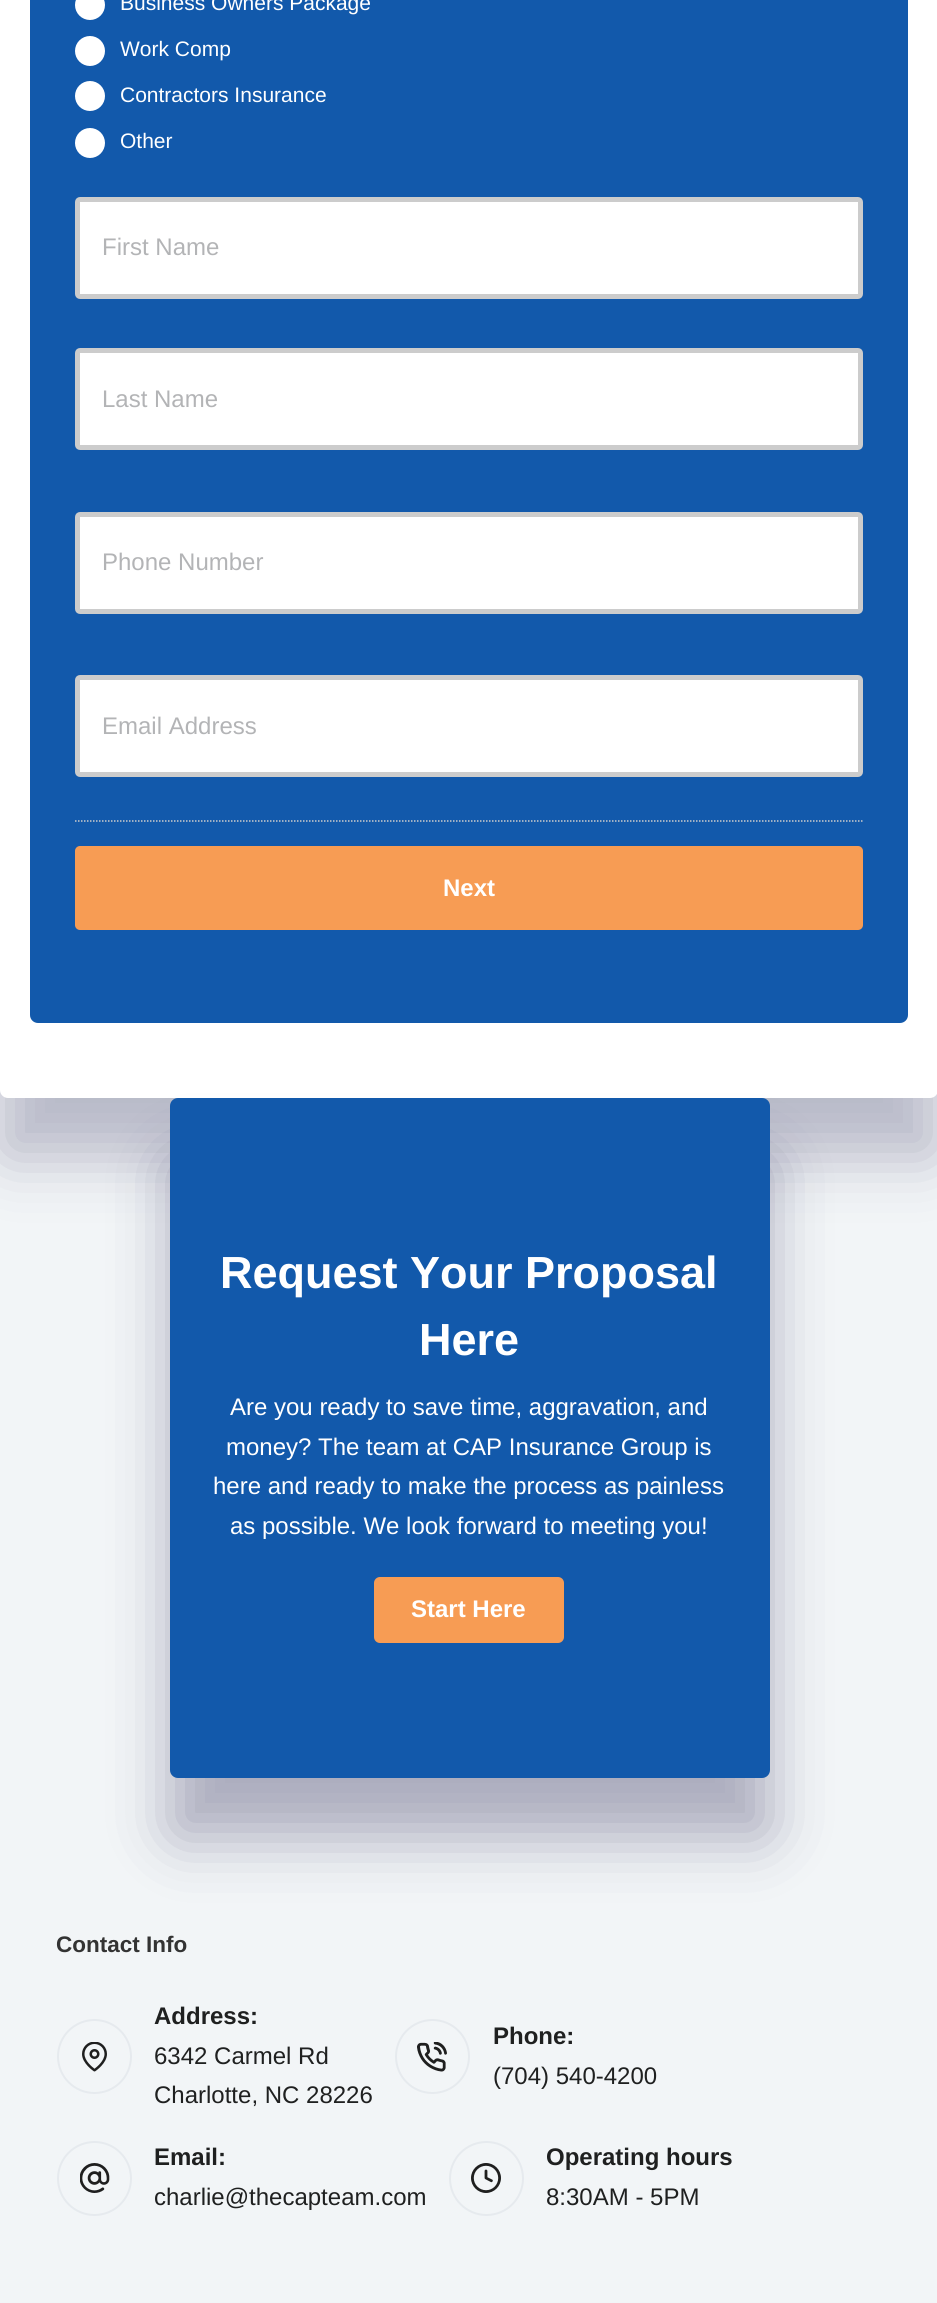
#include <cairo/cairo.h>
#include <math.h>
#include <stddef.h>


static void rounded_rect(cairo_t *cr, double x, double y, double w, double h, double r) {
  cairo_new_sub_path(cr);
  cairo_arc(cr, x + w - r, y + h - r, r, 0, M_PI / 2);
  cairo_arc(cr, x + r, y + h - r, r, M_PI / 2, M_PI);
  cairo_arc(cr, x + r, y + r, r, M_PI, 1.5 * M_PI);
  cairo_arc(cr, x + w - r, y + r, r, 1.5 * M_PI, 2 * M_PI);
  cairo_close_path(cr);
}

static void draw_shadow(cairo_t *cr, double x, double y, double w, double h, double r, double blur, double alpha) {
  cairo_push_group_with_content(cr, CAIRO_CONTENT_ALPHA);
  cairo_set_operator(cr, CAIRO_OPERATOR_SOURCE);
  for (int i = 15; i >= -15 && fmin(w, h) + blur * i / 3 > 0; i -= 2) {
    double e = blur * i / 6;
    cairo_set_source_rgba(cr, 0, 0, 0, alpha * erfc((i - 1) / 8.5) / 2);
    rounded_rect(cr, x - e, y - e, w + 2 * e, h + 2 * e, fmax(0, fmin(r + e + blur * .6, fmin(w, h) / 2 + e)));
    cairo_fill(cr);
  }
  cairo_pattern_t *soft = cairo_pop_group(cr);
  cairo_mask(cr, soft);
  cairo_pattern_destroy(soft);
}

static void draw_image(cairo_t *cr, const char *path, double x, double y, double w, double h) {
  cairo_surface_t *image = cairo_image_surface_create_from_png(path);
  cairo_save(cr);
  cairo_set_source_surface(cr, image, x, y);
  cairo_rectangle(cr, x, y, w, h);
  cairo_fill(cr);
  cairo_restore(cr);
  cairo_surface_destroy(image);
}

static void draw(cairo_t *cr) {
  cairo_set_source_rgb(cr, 242 / 255.0, 245 / 255.0, 247 / 255.0);
  cairo_paint(cr);
  cairo_set_source_rgb(cr, 28 / 255.0, 25 / 255.0, 73 / 255.0);
  draw_shadow(cr, 0, -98, 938, 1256, 8, 30, 0.27);
  cairo_set_source_rgb(cr, 1, 1, 1);
  rounded_rect(cr, 0, -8, 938, 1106, 8);
  cairo_fill(cr);
  cairo_set_source_rgb(cr, 18 / 255.0, 89 / 255.0, 171 / 255.0);
  rounded_rect(cr, 30, -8, 878, 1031, 8);
  cairo_fill(cr);
  cairo_set_source_rgb(cr, 1, 1, 1);
  cairo_arc(cr, 90, 5, 12.5, 0, 2 * M_PI);
  cairo_fill_preserve(cr);
  cairo_set_line_width(cr, 5);
  cairo_stroke(cr);
  cairo_arc(cr, 90, 51, 12.5, 0, 2 * M_PI);
  cairo_fill_preserve(cr);
  cairo_stroke(cr);
  cairo_arc(cr, 90, 96, 12.5, 0, 2 * M_PI);
  cairo_fill_preserve(cr);
  cairo_stroke(cr);
  cairo_arc(cr, 90, 143, 12.5, 0, 2 * M_PI);
  cairo_fill_preserve(cr);
  cairo_stroke(cr);
  rounded_rect(cr, 77.5, 199.5, 783, 97, 2.5);
  cairo_fill_preserve(cr);
  cairo_set_source_rgb(cr, 204 / 255.0, 204 / 255.0, 204 / 255.0);
  cairo_stroke(cr);
  cairo_set_source_rgb(cr, 1, 1, 1);
  rounded_rect(cr, 77.5, 350.5, 783, 97, 2.5);
  cairo_fill_preserve(cr);
  cairo_set_source_rgb(cr, 204 / 255.0, 204 / 255.0, 204 / 255.0);
  cairo_stroke(cr);
  cairo_set_source_rgb(cr, 1, 1, 1);
  rounded_rect(cr, 77.5, 514.5, 783, 97, 2.5);
  cairo_fill_preserve(cr);
  cairo_set_source_rgb(cr, 204 / 255.0, 204 / 255.0, 204 / 255.0);
  cairo_stroke(cr);
  cairo_set_source_rgb(cr, 1, 1, 1);
  rounded_rect(cr, 77.5, 677.5, 783, 97, 2.5);
  cairo_fill_preserve(cr);
  cairo_set_source_rgb(cr, 204 / 255.0, 204 / 255.0, 204 / 255.0);
  cairo_stroke(cr);
  cairo_new_path(cr);
  cairo_move_to(cr, 75, 821);
  cairo_line_to(cr, 862.5, 821);
  cairo_set_line_width(cr, 1.5);
  cairo_set_dash(cr, (double[]){1.5, 1.5}, 2, 0);
  cairo_stroke(cr);
  cairo_set_source_rgb(cr, 247 / 255.0, 156 / 255.0, 84 / 255.0);
  rounded_rect(cr, 75, 846, 788, 84, 5);
  cairo_fill(cr);
  cairo_set_source_rgb(cr, 28 / 255.0, 25 / 255.0, 73 / 255.0);
  draw_shadow(cr, 170, 1158, 600, 680, 8, 30, 0.33);
  cairo_set_source_rgb(cr, 18 / 255.0, 89 / 255.0, 171 / 255.0);
  rounded_rect(cr, 170, 1098, 600, 680, 8);
  cairo_fill(cr);
  cairo_set_source_rgb(cr, 247 / 255.0, 156 / 255.0, 84 / 255.0);
  rounded_rect(cr, 375, 1578, 188, 64, 5);
  cairo_fill_preserve(cr);
  cairo_set_line_width(cr, 2);
  cairo_set_dash(cr, NULL, 0, 0);
  cairo_stroke(cr);
  cairo_arc(cr, 94.5, 2056.5, 36.5, 0, 2 * M_PI);
  cairo_set_source_rgb(cr, 230 / 255.0, 234 / 255.0, 238 / 255.0);
  cairo_stroke(cr);
  draw_image(cr, "images/1.png", 82, 2042, 25, 30);
  cairo_arc(cr, 432.5, 2056.5, 36.5, 0, 2 * M_PI);
  cairo_stroke(cr);
  draw_image(cr, "images/2.png", 417, 2042, 30, 30);
  cairo_arc(cr, 94.5, 2178.5, 36.5, 0, 2 * M_PI);
  cairo_stroke(cr);
  draw_image(cr, "images/3.png", 80, 2163, 30, 30);
  cairo_arc(cr, 486.5, 2178.5, 36.5, 0, 2 * M_PI);
  cairo_stroke(cr);
  draw_image(cr, "images/4.png", 471, 2163, 30, 30);
  cairo_select_font_face(cr, "Liberation Sans", CAIRO_FONT_SLANT_NORMAL, CAIRO_FONT_WEIGHT_NORMAL);
  cairo_set_font_size(cr, 21);
  cairo_set_source_rgb(cr, 1, 1, 1);
  cairo_move_to(cr, 120, 10);
  cairo_show_text(cr, "Business Owners Package");
  cairo_move_to(cr, 120, 56);
  cairo_show_text(cr, "Work Comp");
  cairo_move_to(cr, 120, 102);
  cairo_show_text(cr, "Contractors Insurance");
  cairo_move_to(cr, 120, 148);
  cairo_show_text(cr, "Other");
  cairo_set_font_size(cr, 24);
  cairo_set_source_rgb(cr, 179 / 255.0, 180 / 255.0, 182 / 255.0);
  cairo_move_to(cr, 102, 255);
  cairo_show_text(cr, "First Name");
  cairo_move_to(cr, 102, 407);
  cairo_show_text(cr, "Last Name");
  cairo_move_to(cr, 102, 570);
  cairo_show_text(cr, "Phone Number");
  cairo_move_to(cr, 102, 734);
  cairo_show_text(cr, "Email Address");
  cairo_select_font_face(cr, "Liberation Sans", CAIRO_FONT_SLANT_NORMAL, CAIRO_FONT_WEIGHT_BOLD);
  cairo_set_source_rgb(cr, 1, 1, 1);
  cairo_move_to(cr, 443, 896);
  cairo_show_text(cr, "Next");
  cairo_set_font_size(cr, 45);
  cairo_move_to(cr, 220, 1288);
  cairo_show_text(cr, "Request Your Proposal");
  cairo_move_to(cr, 419, 1355);
  cairo_show_text(cr, "Here");
  cairo_select_font_face(cr, "Liberation Sans", CAIRO_FONT_SLANT_NORMAL, CAIRO_FONT_WEIGHT_NORMAL);
  cairo_set_font_size(cr, 24);
  cairo_move_to(cr, 230, 1415);
  cairo_show_text(cr, "Are you ready to save time, aggravation, and");
  cairo_move_to(cr, 226, 1455);
  cairo_show_text(cr, "money? The team at CAP Insurance Group is");
  cairo_move_to(cr, 213, 1494);
  cairo_show_text(cr, "here and ready to make the process as painless");
  cairo_move_to(cr, 230, 1534);
  cairo_show_text(cr, "as possible. We look forward to meeting you!");
  cairo_select_font_face(cr, "Liberation Sans", CAIRO_FONT_SLANT_NORMAL, CAIRO_FONT_WEIGHT_BOLD);
  cairo_move_to(cr, 411, 1617);
  cairo_show_text(cr, "Start Here");
  cairo_set_font_size(cr, 22.5);
  cairo_set_source_rgb(cr, 51 / 255.0, 51 / 255.0, 51 / 255.0);
  cairo_move_to(cr, 56, 1952);
  cairo_show_text(cr, "Contact Info");
  cairo_set_font_size(cr, 24);
  cairo_set_source_rgb(cr, 31 / 255.0, 32 / 255.0, 32 / 255.0);
  cairo_move_to(cr, 154, 2024);
  cairo_show_text(cr, "Address:");
  cairo_select_font_face(cr, "Liberation Sans", CAIRO_FONT_SLANT_NORMAL, CAIRO_FONT_WEIGHT_NORMAL);
  cairo_move_to(cr, 154, 2064);
  cairo_show_text(cr, "6342 Carmel Rd");
  cairo_move_to(cr, 154, 2103);
  cairo_show_text(cr, "Charlotte, NC 28226");
  cairo_select_font_face(cr, "Liberation Sans", CAIRO_FONT_SLANT_NORMAL, CAIRO_FONT_WEIGHT_BOLD);
  cairo_move_to(cr, 493, 2044);
  cairo_show_text(cr, "Phone:");
  cairo_select_font_face(cr, "Liberation Sans", CAIRO_FONT_SLANT_NORMAL, CAIRO_FONT_WEIGHT_NORMAL);
  cairo_move_to(cr, 493, 2084);
  cairo_show_text(cr, "(704) 540-4200");
  cairo_select_font_face(cr, "Liberation Sans", CAIRO_FONT_SLANT_NORMAL, CAIRO_FONT_WEIGHT_BOLD);
  cairo_move_to(cr, 154, 2165);
  cairo_show_text(cr, "Email:");
  cairo_select_font_face(cr, "Liberation Sans", CAIRO_FONT_SLANT_NORMAL, CAIRO_FONT_WEIGHT_NORMAL);
  cairo_move_to(cr, 154, 2205);
  cairo_show_text(cr, "charlie@thecapteam.com");
  cairo_select_font_face(cr, "Liberation Sans", CAIRO_FONT_SLANT_NORMAL, CAIRO_FONT_WEIGHT_BOLD);
  cairo_move_to(cr, 546, 2165);
  cairo_show_text(cr, "Operating hours");
  cairo_select_font_face(cr, "Liberation Sans", CAIRO_FONT_SLANT_NORMAL, CAIRO_FONT_WEIGHT_NORMAL);
  cairo_move_to(cr, 546, 2205);
  cairo_show_text(cr, "8:30AM - 5PM");
}

int main(void) {
  cairo_surface_t *surface = cairo_image_surface_create(CAIRO_FORMAT_RGB24, 937, 2303);
  cairo_t *cr = cairo_create(surface);
  cairo_font_options_t *options = cairo_font_options_create();
  cairo_font_options_set_hint_metrics(options, CAIRO_HINT_METRICS_OFF);
  cairo_font_options_set_hint_style(options, CAIRO_HINT_STYLE_NONE);
  cairo_set_font_options(cr, options);
  cairo_set_miter_limit(cr, 4);
  draw(cr);
  cairo_surface_write_to_png(surface, "out.png");
  cairo_font_options_destroy(options);
  cairo_destroy(cr);
  cairo_surface_destroy(surface);
  return 0;
}
